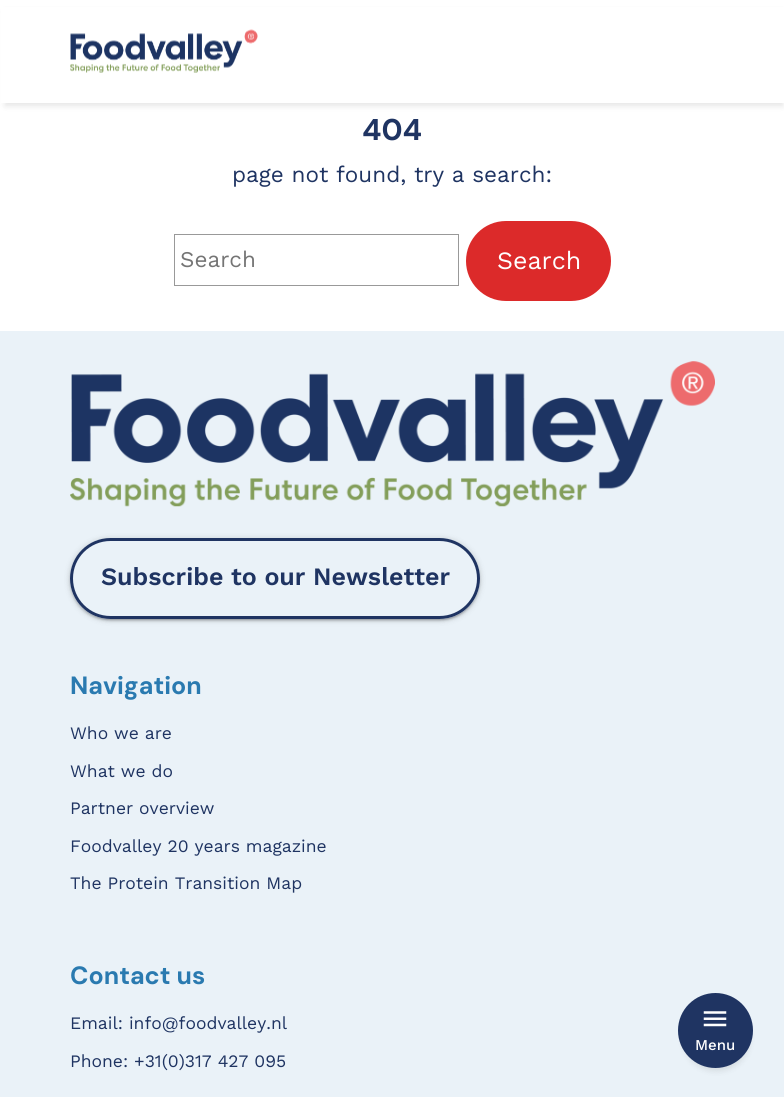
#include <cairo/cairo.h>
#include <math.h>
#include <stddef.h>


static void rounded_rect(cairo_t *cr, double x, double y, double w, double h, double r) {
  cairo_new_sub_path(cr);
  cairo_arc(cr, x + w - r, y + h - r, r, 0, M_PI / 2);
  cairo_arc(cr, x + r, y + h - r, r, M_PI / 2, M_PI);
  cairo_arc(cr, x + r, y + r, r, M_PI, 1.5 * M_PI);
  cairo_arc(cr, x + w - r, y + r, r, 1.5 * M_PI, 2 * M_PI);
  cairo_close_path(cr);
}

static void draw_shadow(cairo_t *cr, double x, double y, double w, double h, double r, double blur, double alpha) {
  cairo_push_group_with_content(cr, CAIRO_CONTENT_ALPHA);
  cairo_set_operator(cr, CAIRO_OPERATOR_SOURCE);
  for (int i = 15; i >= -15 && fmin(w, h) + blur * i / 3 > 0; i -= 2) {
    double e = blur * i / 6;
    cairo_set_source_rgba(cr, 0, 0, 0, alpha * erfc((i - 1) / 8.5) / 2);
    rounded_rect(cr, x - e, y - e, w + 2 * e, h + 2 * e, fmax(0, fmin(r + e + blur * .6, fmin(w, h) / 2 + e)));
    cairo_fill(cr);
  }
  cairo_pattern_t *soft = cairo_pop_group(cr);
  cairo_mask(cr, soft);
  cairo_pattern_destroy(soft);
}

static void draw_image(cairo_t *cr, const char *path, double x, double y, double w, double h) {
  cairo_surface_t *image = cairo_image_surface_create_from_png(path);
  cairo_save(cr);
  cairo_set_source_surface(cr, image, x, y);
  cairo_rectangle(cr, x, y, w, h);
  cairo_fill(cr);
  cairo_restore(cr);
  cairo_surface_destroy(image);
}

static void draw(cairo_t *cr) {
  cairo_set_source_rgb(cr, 1, 1, 1);
  cairo_paint(cr);
  cairo_set_source_rgb(cr, 0, 0, 0);
  draw_shadow(cr, 5, 11, 778, 95, 0, 3, 0.1);
  cairo_set_source_rgb(cr, 1, 1, 1);
  cairo_rectangle(cr, 1, 7, 783, 96);
  cairo_fill(cr);
  draw_image(cr, "images/1.png", 70, 29, 188, 44);
  cairo_rectangle(cr, 174.5, 234.5, 284, 51);
  cairo_set_source_rgb(cr, 153 / 255.0, 153 / 255.0, 153 / 255.0);
  cairo_set_line_width(cr, 1);
  cairo_stroke(cr);
  cairo_set_source_rgb(cr, 220 / 255.0, 42 / 255.0, 42 / 255.0);
  rounded_rect(cr, 467.5, 222.5, 142, 77, 38.5);
  cairo_fill_preserve(cr);
  cairo_set_line_width(cr, 3);
  cairo_stroke(cr);
  cairo_set_source_rgb(cr, 234 / 255.0, 242 / 255.0, 248 / 255.0);
  cairo_rectangle(cr, 0, 331, 784, 766);
  cairo_fill(cr);
  draw_image(cr, "images/2.png", 70, 361, 645, 146);
  cairo_save(cr);
  cairo_set_fill_rule(cr, CAIRO_FILL_RULE_EVEN_ODD);
  cairo_new_path(cr);
  cairo_move_to(cr, 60, 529);
  cairo_line_to(cr, 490, 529);
  cairo_line_to(cr, 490, 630);
  cairo_line_to(cr, 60, 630);
  cairo_close_path(cr);
  cairo_move_to(cr, 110.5, 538);
  cairo_line_to(cr, 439.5, 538);
  cairo_curve_to(cr, 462, 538, 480, 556, 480, 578.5);
  cairo_curve_to(cr, 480, 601, 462, 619, 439.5, 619);
  cairo_line_to(cr, 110.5, 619);
  cairo_curve_to(cr, 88, 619, 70, 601, 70, 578.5);
  cairo_curve_to(cr, 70, 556, 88, 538, 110.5, 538);
  cairo_close_path(cr);
  cairo_clip(cr);
  cairo_set_source_rgb(cr, 0, 0, 0);
  draw_shadow(cr, 70, 539, 410, 81, 40.5, 3, 0.2);
  cairo_restore(cr);
  cairo_save(cr);
  cairo_set_fill_rule(cr, CAIRO_FILL_RULE_EVEN_ODD);
  cairo_new_path(cr);
  cairo_move_to(cr, 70, 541);
  cairo_line_to(cr, 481, 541);
  cairo_line_to(cr, 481, 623);
  cairo_line_to(cr, 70, 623);
  cairo_close_path(cr);
  cairo_move_to(cr, 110.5, 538);
  cairo_line_to(cr, 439.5, 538);
  cairo_curve_to(cr, 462, 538, 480, 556, 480, 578.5);
  cairo_curve_to(cr, 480, 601, 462, 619, 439.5, 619);
  cairo_line_to(cr, 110.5, 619);
  cairo_curve_to(cr, 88, 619, 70, 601, 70, 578.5);
  cairo_curve_to(cr, 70, 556, 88, 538, 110.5, 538);
  cairo_close_path(cr);
  cairo_clip(cr);
  cairo_set_source_rgb(cr, 0, 0, 0);
  draw_shadow(cr, 73, 544, 405, 76, 38, 0.5, 0.12);
  cairo_restore(cr);
  cairo_save(cr);
  cairo_set_fill_rule(cr, CAIRO_FILL_RULE_EVEN_ODD);
  cairo_new_path(cr);
  cairo_move_to(cr, 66, 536);
  cairo_line_to(cr, 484, 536);
  cairo_line_to(cr, 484, 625);
  cairo_line_to(cr, 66, 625);
  cairo_close_path(cr);
  cairo_move_to(cr, 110.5, 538);
  cairo_line_to(cr, 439.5, 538);
  cairo_curve_to(cr, 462, 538, 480, 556, 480, 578.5);
  cairo_curve_to(cr, 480, 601, 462, 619, 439.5, 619);
  cairo_line_to(cr, 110.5, 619);
  cairo_curve_to(cr, 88, 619, 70, 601, 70, 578.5);
  cairo_curve_to(cr, 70, 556, 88, 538, 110.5, 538);
  cairo_close_path(cr);
  cairo_clip(cr);
  cairo_set_source_rgb(cr, 0, 0, 0);
  draw_shadow(cr, 70, 540, 410, 81, 40.5, 1, 0.14);
  cairo_restore(cr);
  rounded_rect(cr, 71.5, 539.5, 407, 78, 39);
  cairo_set_source_rgb(cr, 31 / 255.0, 52 / 255.0, 98 / 255.0);
  cairo_stroke(cr);
  cairo_set_source_rgb(cr, 0, 0, 0);
  draw_shadow(cr, 683, 1004, 67, 67, 33.5, 3, 0.1);
  cairo_set_source_rgb(cr, 31 / 255.0, 52 / 255.0, 98 / 255.0);
  cairo_arc(cr, 715.5, 1030.5, 37.5, 0, 2 * M_PI);
  cairo_fill(cr);
  draw_image(cr, "images/3.png", 703, 1011, 24, 16);
  cairo_select_font_face(cr, "DM Sans", CAIRO_FONT_SLANT_NORMAL, CAIRO_FONT_WEIGHT_BOLD);
  cairo_set_font_size(cr, 30);
  cairo_move_to(cr, 362, 140);
  cairo_show_text(cr, "404");
  cairo_select_font_face(cr, "Work Sans", CAIRO_FONT_SLANT_NORMAL, CAIRO_FONT_WEIGHT_NORMAL);
  cairo_set_font_size(cr, 22.5);
  cairo_move_to(cr, 232, 182);
  cairo_show_text(cr, "page not found, try a search:");
  cairo_set_source_rgb(cr, 117 / 255.0, 117 / 255.0, 117 / 255.0);
  cairo_move_to(cr, 180, 267);
  cairo_show_text(cr, "Search");
  cairo_set_font_size(cr, 25);
  cairo_set_source_rgb(cr, 1, 1, 1);
  cairo_move_to(cr, 497, 269);
  cairo_show_text(cr, "Search");
  cairo_select_font_face(cr, "Work Sans SemiBold", CAIRO_FONT_SLANT_NORMAL, CAIRO_FONT_WEIGHT_NORMAL);
  cairo_set_source_rgb(cr, 31 / 255.0, 52 / 255.0, 98 / 255.0);
  cairo_move_to(cr, 101, 585);
  cairo_show_text(cr, "Subscribe to our Newsletter");
  cairo_select_font_face(cr, "DM Sans", CAIRO_FONT_SLANT_NORMAL, CAIRO_FONT_WEIGHT_BOLD);
  cairo_set_source_rgb(cr, 42 / 255.0, 122 / 255.0, 176 / 255.0);
  cairo_move_to(cr, 70, 694);
  cairo_show_text(cr, "Navigation");
  cairo_select_font_face(cr, "Work Sans", CAIRO_FONT_SLANT_NORMAL, CAIRO_FONT_WEIGHT_NORMAL);
  cairo_set_font_size(cr, 17.5);
  cairo_set_source_rgb(cr, 31 / 255.0, 52 / 255.0, 98 / 255.0);
  cairo_move_to(cr, 70, 739);
  cairo_show_text(cr, "Who we are");
  cairo_move_to(cr, 70, 777);
  cairo_show_text(cr, "What we do");
  cairo_move_to(cr, 70, 814);
  cairo_show_text(cr, "Partner overview");
  cairo_move_to(cr, 70, 852);
  cairo_show_text(cr, "Foodvalley 20 years magazine");
  cairo_move_to(cr, 70, 889);
  cairo_show_text(cr, "The Protein Transition Map");
  cairo_select_font_face(cr, "DM Sans", CAIRO_FONT_SLANT_NORMAL, CAIRO_FONT_WEIGHT_BOLD);
  cairo_set_font_size(cr, 25);
  cairo_set_source_rgb(cr, 42 / 255.0, 122 / 255.0, 176 / 255.0);
  cairo_move_to(cr, 70, 984);
  cairo_show_text(cr, "Contact us");
  cairo_select_font_face(cr, "Work Sans", CAIRO_FONT_SLANT_NORMAL, CAIRO_FONT_WEIGHT_NORMAL);
  cairo_set_font_size(cr, 17.5);
  cairo_set_source_rgb(cr, 31 / 255.0, 52 / 255.0, 98 / 255.0);
  cairo_move_to(cr, 70, 1029);
  cairo_show_text(cr, "Email: info@foodvalley.nl");
  cairo_move_to(cr, 70, 1067);
  cairo_show_text(cr, "Phone: +31(0)317 427 095");
  cairo_select_font_face(cr, "Work Sans Medium", CAIRO_FONT_SLANT_NORMAL, CAIRO_FONT_WEIGHT_NORMAL);
  cairo_set_font_size(cr, 15);
  cairo_set_source_rgb(cr, 1, 1, 1);
  cairo_move_to(cr, 695, 1050);
  cairo_show_text(cr, "Menu");
}

int main(void) {
  cairo_surface_t *surface = cairo_image_surface_create(CAIRO_FORMAT_RGB24, 784, 1097);
  cairo_t *cr = cairo_create(surface);
  cairo_font_options_t *options = cairo_font_options_create();
  cairo_font_options_set_hint_metrics(options, CAIRO_HINT_METRICS_OFF);
  cairo_font_options_set_hint_style(options, CAIRO_HINT_STYLE_NONE);
  cairo_set_font_options(cr, options);
  cairo_set_miter_limit(cr, 4);
  draw(cr);
  cairo_surface_write_to_png(surface, "out.png");
  cairo_font_options_destroy(options);
  cairo_destroy(cr);
  cairo_surface_destroy(surface);
  return 0;
}
